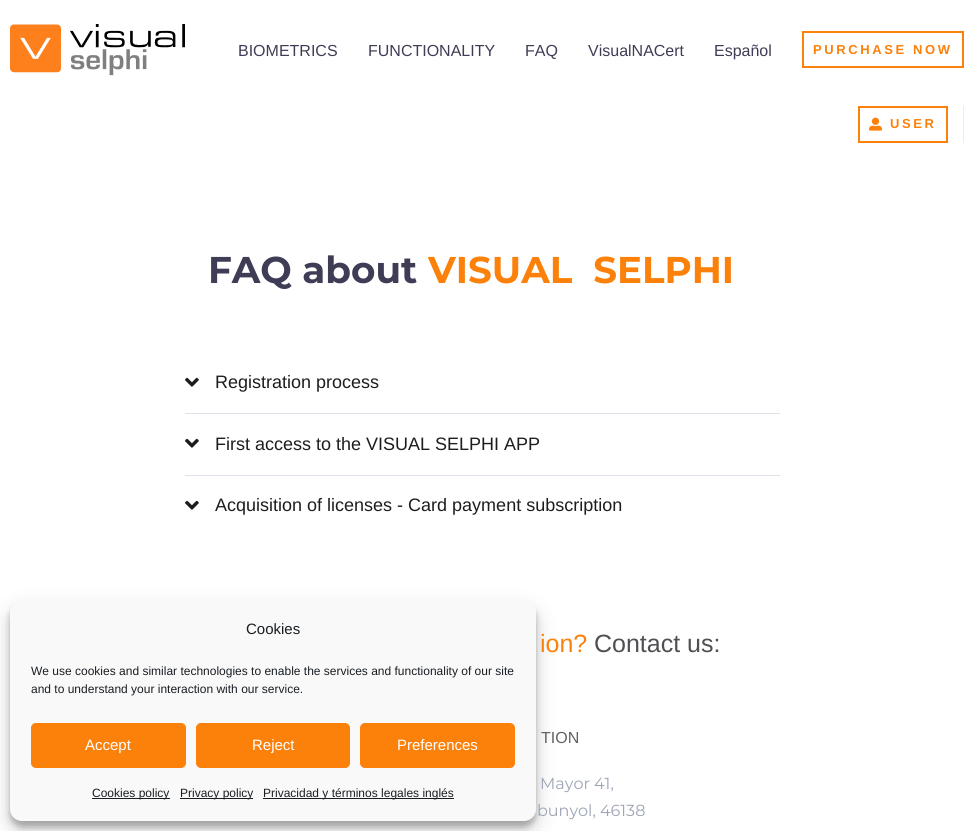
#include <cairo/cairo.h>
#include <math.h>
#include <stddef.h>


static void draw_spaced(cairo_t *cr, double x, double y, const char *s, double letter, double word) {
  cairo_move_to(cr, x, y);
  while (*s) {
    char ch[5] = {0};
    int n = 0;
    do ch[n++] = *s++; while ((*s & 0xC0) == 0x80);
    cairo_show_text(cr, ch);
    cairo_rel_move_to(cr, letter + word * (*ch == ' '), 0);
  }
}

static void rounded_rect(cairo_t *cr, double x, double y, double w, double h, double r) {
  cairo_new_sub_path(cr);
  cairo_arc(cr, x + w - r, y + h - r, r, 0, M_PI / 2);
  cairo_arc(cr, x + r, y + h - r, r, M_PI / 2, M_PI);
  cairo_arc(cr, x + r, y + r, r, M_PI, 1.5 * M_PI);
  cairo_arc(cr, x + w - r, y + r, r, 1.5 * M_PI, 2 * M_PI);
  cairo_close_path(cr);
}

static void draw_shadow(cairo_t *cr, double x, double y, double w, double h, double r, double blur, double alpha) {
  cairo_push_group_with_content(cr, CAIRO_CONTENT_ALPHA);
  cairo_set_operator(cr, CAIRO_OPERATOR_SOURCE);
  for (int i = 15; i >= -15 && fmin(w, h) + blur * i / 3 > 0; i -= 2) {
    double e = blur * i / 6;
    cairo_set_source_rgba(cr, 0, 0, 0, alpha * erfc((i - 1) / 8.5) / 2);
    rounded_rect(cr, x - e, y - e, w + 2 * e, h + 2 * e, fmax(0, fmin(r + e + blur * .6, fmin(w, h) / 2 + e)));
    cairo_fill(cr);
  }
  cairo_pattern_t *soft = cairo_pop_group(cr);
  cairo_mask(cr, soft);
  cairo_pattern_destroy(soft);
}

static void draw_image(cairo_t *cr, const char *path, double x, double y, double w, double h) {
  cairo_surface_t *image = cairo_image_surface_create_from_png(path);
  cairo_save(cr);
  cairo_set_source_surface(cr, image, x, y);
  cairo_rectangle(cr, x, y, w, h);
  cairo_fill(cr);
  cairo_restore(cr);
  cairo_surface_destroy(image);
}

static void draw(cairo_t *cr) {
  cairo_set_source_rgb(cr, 1, 1, 1);
  cairo_paint(cr);
  draw_image(cr, "images/1.png", 10, 24, 175, 52);
  cairo_rectangle(cr, 803, 32, 160, 35);
  cairo_set_source_rgb(cr, 251 / 255.0, 129 / 255.0, 11 / 255.0);
  cairo_stroke(cr);
  cairo_rectangle(cr, 859, 107, 88, 35);
  cairo_stroke(cr);
  draw_image(cr, "images/2.png", 869, 117, 13, 14);
  cairo_set_source_rgb(cr, 237 / 255.0, 237 / 255.0, 237 / 255.0);
  cairo_rectangle(cr, 963, 106, 1, 37);
  cairo_fill(cr);
  cairo_set_source_rgb(cr, 224 / 255.0, 225 / 255.0, 235 / 255.0);
  cairo_rectangle(cr, 185, 413, 595, 1);
  cairo_fill(cr);
  draw_image(cr, "images/3.png", 185, 377, 14, 10);
  cairo_rectangle(cr, 185, 475, 595, 1);
  cairo_fill(cr);
  draw_image(cr, "images/3.png", 185, 438, 14, 10);
  draw_image(cr, "images/3.png", 185, 500, 14, 10);
  cairo_set_source_rgb(cr, 0, 0, 0);
  draw_shadow(cr, 10, 606, 526, 221, 12, 3, 0.23);
  draw_shadow(cr, 10, 610, 526, 221, 12, 10, 0.19);
  cairo_set_source_rgb(cr, 249 / 255.0, 249 / 255.0, 249 / 255.0);
  rounded_rect(cr, 10.5, 600.5, 525, 220, 11.5);
  cairo_fill_preserve(cr);
  cairo_set_line_width(cr, 1);
  cairo_stroke(cr);
  cairo_set_source_rgb(cr, 251 / 255.0, 129 / 255.0, 11 / 255.0);
  rounded_rect(cr, 31.5, 723.5, 154, 44, 4.5);
  cairo_fill_preserve(cr);
  cairo_stroke(cr);
  rounded_rect(cr, 196.5, 723.5, 153, 44, 4.5);
  cairo_fill_preserve(cr);
  cairo_stroke(cr);
  rounded_rect(cr, 360.5, 723.5, 154, 44, 4.5);
  cairo_fill_preserve(cr);
  cairo_stroke(cr);
  cairo_set_source_rgb(cr, 25 / 255.0, 30 / 255.0, 35 / 255.0);
  cairo_rectangle(cr, 92, 798, 78, 1);
  cairo_fill(cr);
  cairo_rectangle(cr, 180, 798, 73, 1);
  cairo_fill(cr);
  cairo_rectangle(cr, 263, 798, 191, 1);
  cairo_fill(cr);
  cairo_select_font_face(cr, "Liberation Sans", CAIRO_FONT_SLANT_NORMAL, CAIRO_FONT_WEIGHT_NORMAL);
  cairo_set_font_size(cr, 16);
  cairo_set_source_rgb(cr, 63 / 255.0, 61 / 255.0, 86 / 255.0);
  cairo_move_to(cr, 238, 56);
  cairo_show_text(cr, "BIOMETRICS");
  cairo_move_to(cr, 368, 56);
  cairo_show_text(cr, "FUNCTIONALITY");
  cairo_move_to(cr, 525, 56);
  cairo_show_text(cr, "FAQ");
  cairo_move_to(cr, 588, 56);
  cairo_show_text(cr, "VisualNACert");
  cairo_move_to(cr, 714, 56);
  cairo_show_text(cr, "Español");
  cairo_select_font_face(cr, "Liberation Sans", CAIRO_FONT_SLANT_NORMAL, CAIRO_FONT_WEIGHT_BOLD);
  cairo_set_font_size(cr, 13);
  cairo_set_source_rgb(cr, 251 / 255.0, 129 / 255.0, 11 / 255.0);
  draw_spaced(cr, 813, 54, "PURCHASE NOW", 2.6, 0);
  draw_spaced(cr, 890, 128, "USER", 2.6, 0);
  cairo_select_font_face(cr, "Montserrat", CAIRO_FONT_SLANT_NORMAL, CAIRO_FONT_WEIGHT_BOLD);
  cairo_set_font_size(cr, 37.25);
  cairo_set_source_rgb(cr, 63 / 255.0, 61 / 255.0, 86 / 255.0);
  cairo_move_to(cr, 208, 283);
  cairo_show_text(cr, "FAQ about");
  cairo_set_source_rgb(cr, 251 / 255.0, 129 / 255.0, 11 / 255.0);
  cairo_move_to(cr, 428, 283);
  cairo_show_text(cr, "VISUAL  SELPHI");
  cairo_select_font_face(cr, "Liberation Sans", CAIRO_FONT_SLANT_NORMAL, CAIRO_FONT_WEIGHT_NORMAL);
  cairo_set_font_size(cr, 18);
  cairo_set_source_rgb(cr, 31 / 255.0, 28 / 255.0, 28 / 255.0);
  cairo_move_to(cr, 215, 388);
  cairo_show_text(cr, "Registration process");
  cairo_move_to(cr, 215, 450);
  cairo_show_text(cr, "First access to the VISUAL SELPHI APP");
  cairo_move_to(cr, 215, 511);
  cairo_show_text(cr, "Acquisition of licenses - Card payment subscription");
  cairo_set_font_size(cr, 25);
  cairo_set_source_rgb(cr, 251 / 255.0, 129 / 255.0, 11 / 255.0);
  cairo_move_to(cr, 540, 652);
  cairo_show_text(cr, "ion?");
  cairo_set_source_rgb(cr, 80 / 255.0, 79 / 255.0, 83 / 255.0);
  cairo_move_to(cr, 594, 652);
  cairo_show_text(cr, "Contact us:");
  cairo_set_font_size(cr, 16);
  cairo_set_source_rgb(cr, 98 / 255.0, 97 / 255.0, 99 / 255.0);
  cairo_move_to(cr, 541, 743);
  cairo_show_text(cr, "TION");
  cairo_select_font_face(cr, "Montserrat", CAIRO_FONT_SLANT_NORMAL, CAIRO_FONT_WEIGHT_NORMAL);
  cairo_set_source_rgb(cr, 156 / 255.0, 164 / 255.0, 182 / 255.0);
  cairo_move_to(cr, 540, 789);
  cairo_show_text(cr, "Mayor 41,");
  cairo_move_to(cr, 537, 816);
  cairo_show_text(cr, "bunyol, 46138");
  cairo_select_font_face(cr, "Liberation Sans", CAIRO_FONT_SLANT_NORMAL, CAIRO_FONT_WEIGHT_NORMAL);
  cairo_set_font_size(cr, 15);
  cairo_set_source_rgb(cr, 25 / 255.0, 30 / 255.0, 35 / 255.0);
  cairo_move_to(cr, 246, 634);
  cairo_show_text(cr, "Cookies");
  cairo_set_font_size(cr, 12);
  cairo_move_to(cr, 31, 675);
  cairo_show_text(cr, "We use cookies and similar technologies to enable the services and functionality of our site");
  cairo_move_to(cr, 31, 693);
  cairo_show_text(cr, "and to understand your interaction with our service.");
  cairo_set_font_size(cr, 15);
  cairo_set_source_rgb(cr, 1, 1, 1);
  cairo_move_to(cr, 85, 750);
  cairo_show_text(cr, "Accept");
  cairo_move_to(cr, 252, 750);
  cairo_show_text(cr, "Reject");
  cairo_move_to(cr, 397, 750);
  cairo_show_text(cr, "Preferences");
  cairo_set_font_size(cr, 12);
  cairo_set_source_rgb(cr, 25 / 255.0, 30 / 255.0, 35 / 255.0);
  cairo_move_to(cr, 92, 797);
  cairo_show_text(cr, "Cookies policy");
  cairo_move_to(cr, 180, 797);
  cairo_show_text(cr, "Privacy policy");
  cairo_move_to(cr, 263, 797);
  cairo_show_text(cr, "Privacidad y términos legales inglés");
}

int main(void) {
  cairo_surface_t *surface = cairo_image_surface_create(CAIRO_FORMAT_RGB24, 964, 831);
  cairo_t *cr = cairo_create(surface);
  cairo_font_options_t *options = cairo_font_options_create();
  cairo_font_options_set_hint_metrics(options, CAIRO_HINT_METRICS_OFF);
  cairo_font_options_set_hint_style(options, CAIRO_HINT_STYLE_NONE);
  cairo_set_font_options(cr, options);
  cairo_set_miter_limit(cr, 4);
  draw(cr);
  cairo_surface_write_to_png(surface, "out.png");
  cairo_font_options_destroy(options);
  cairo_destroy(cr);
  cairo_surface_destroy(surface);
  return 0;
}
